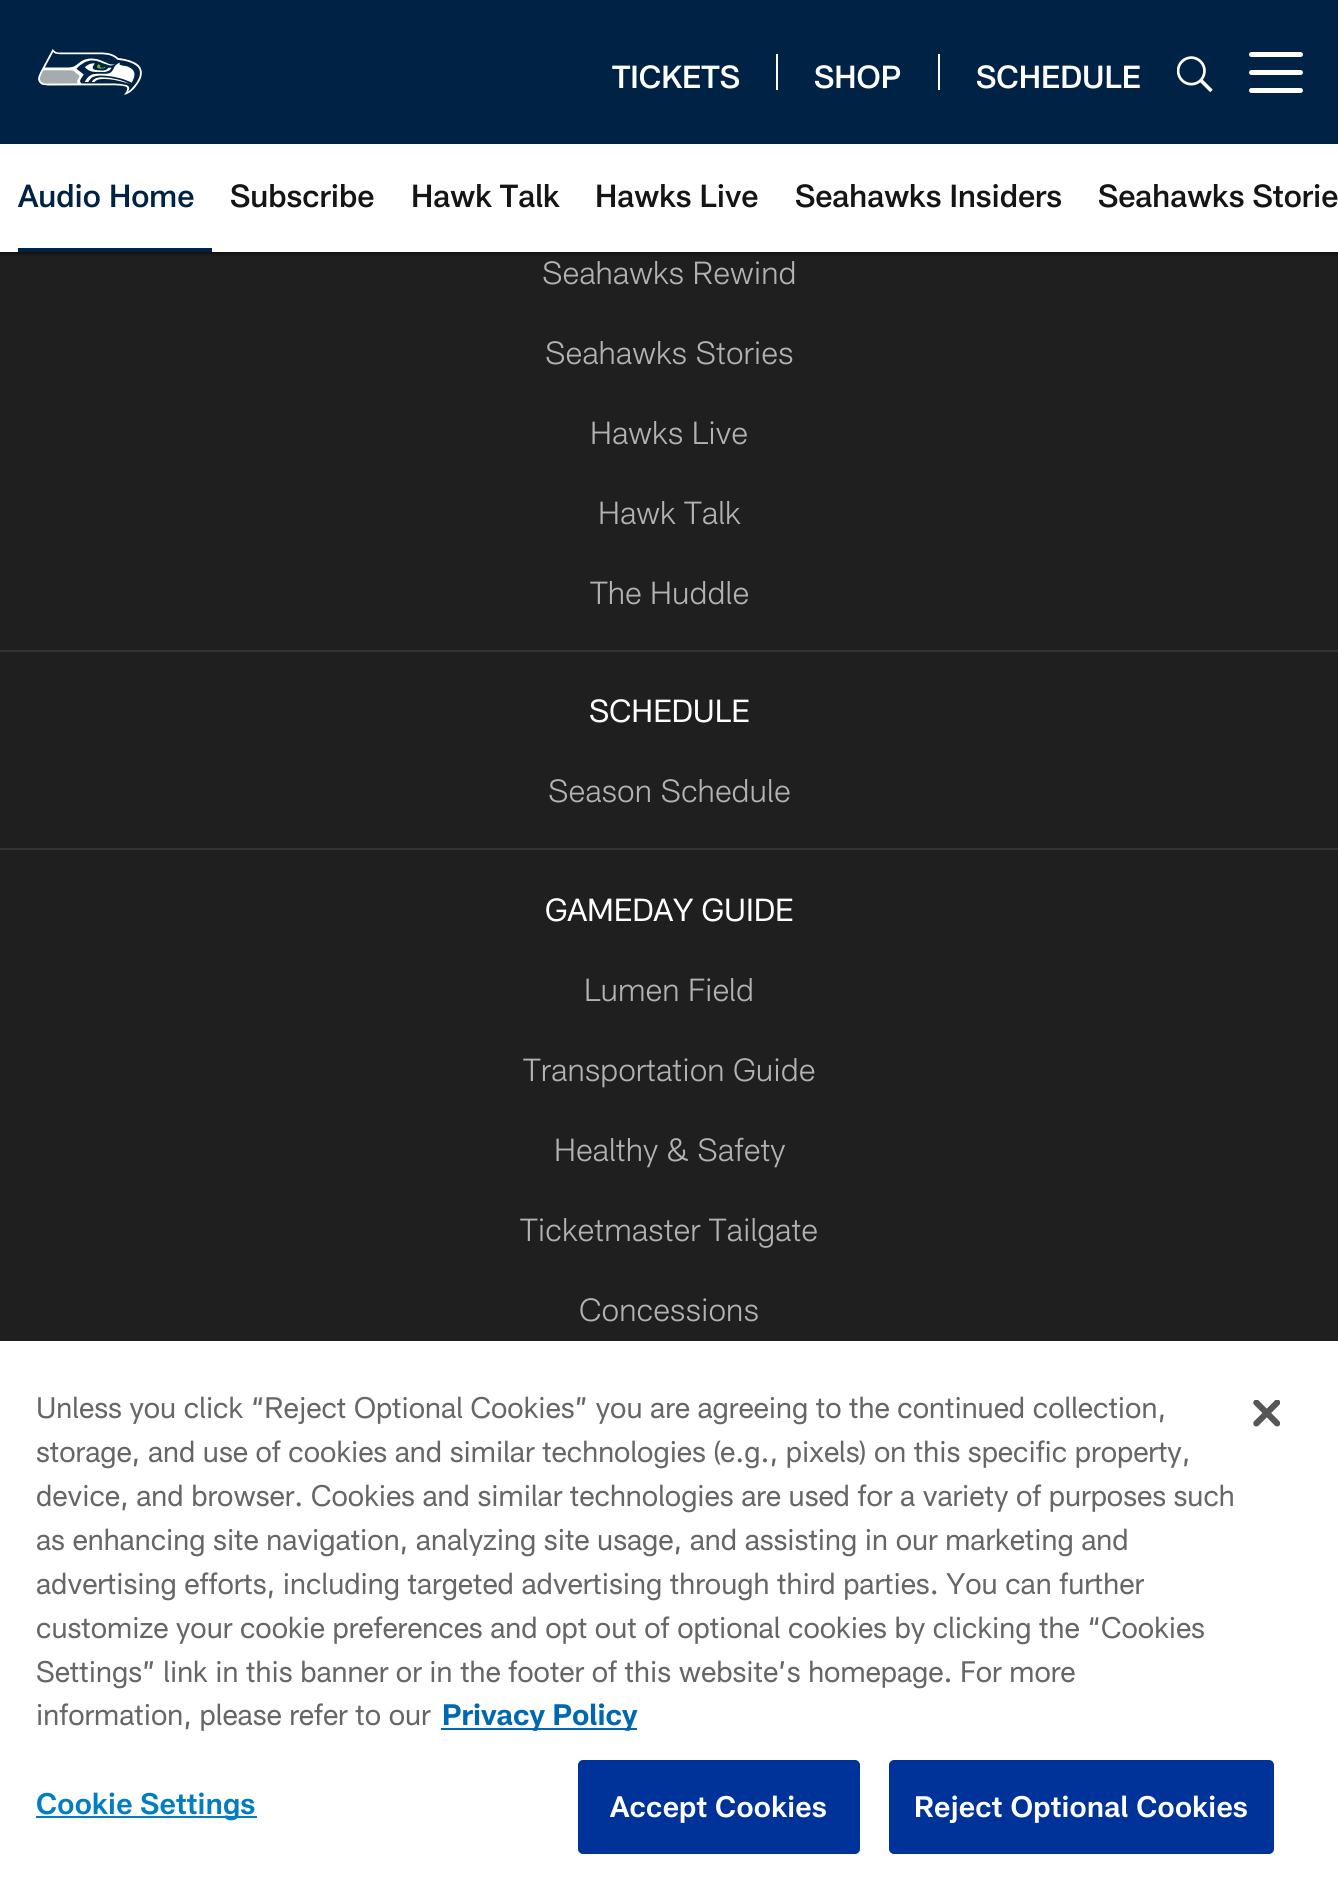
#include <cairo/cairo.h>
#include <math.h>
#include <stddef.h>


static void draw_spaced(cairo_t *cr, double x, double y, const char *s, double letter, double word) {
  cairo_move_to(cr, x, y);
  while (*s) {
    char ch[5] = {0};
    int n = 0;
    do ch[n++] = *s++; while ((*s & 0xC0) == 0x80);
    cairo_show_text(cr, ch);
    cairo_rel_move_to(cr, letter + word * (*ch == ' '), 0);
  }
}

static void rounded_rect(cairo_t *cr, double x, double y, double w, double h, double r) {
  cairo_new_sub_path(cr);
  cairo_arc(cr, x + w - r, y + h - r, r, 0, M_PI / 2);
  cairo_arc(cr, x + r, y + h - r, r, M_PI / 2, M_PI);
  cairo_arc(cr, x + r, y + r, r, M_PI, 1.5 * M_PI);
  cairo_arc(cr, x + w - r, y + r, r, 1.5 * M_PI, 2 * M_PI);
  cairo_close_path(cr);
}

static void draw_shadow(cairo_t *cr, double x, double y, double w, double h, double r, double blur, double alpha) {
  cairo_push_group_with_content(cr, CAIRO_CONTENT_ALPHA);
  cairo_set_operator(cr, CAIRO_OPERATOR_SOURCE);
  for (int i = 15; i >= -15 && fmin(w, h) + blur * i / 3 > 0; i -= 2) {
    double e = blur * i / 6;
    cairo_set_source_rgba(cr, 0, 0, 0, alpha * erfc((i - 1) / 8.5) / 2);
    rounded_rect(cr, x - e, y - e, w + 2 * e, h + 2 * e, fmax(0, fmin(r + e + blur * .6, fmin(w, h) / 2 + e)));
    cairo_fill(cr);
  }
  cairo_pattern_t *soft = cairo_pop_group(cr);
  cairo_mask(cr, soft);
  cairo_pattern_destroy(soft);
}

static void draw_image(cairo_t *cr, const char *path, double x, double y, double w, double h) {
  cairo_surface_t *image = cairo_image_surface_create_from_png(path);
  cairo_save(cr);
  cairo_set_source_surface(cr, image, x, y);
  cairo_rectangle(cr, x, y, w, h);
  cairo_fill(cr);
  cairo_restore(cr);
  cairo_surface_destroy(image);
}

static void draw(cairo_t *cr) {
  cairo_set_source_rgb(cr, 31 / 255.0, 31 / 255.0, 31 / 255.0);
  cairo_paint(cr);
  cairo_set_source_rgb(cr, 0, 34 / 255.0, 68 / 255.0);
  cairo_rectangle(cr, 0, 0, 1338, 144);
  cairo_fill(cr);
  draw_image(cr, "images/1.png", 38, 49, 104, 46);
  cairo_set_source_rgb(cr, 1, 1, 1);
  cairo_rectangle(cr, 776, 54, 2, 36);
  cairo_fill(cr);
  cairo_rectangle(cr, 938, 54, 2, 36);
  cairo_fill(cr);
  draw_image(cr, "images/2.png", 1177, 56, 36, 36);
  rounded_rect(cr, 1249, 70, 54, 5, 2.5);
  cairo_fill(cr);
  rounded_rect(cr, 1249, 52, 54, 5, 2.5);
  cairo_fill(cr);
  rounded_rect(cr, 1249, 88, 54, 5, 2.5);
  cairo_fill(cr);
  cairo_set_source_rgb(cr, 0, 0, 0);
  draw_shadow(cr, 0, 146, 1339, 108, 0, 2, 0.47);
  cairo_set_source_rgb(cr, 1, 1, 1);
  cairo_rectangle(cr, 0, 144, 1338, 108);
  cairo_fill(cr);
  cairo_set_source_rgb(cr, 0, 34 / 255.0, 68 / 255.0);
  cairo_rectangle(cr, 18, 248, 194, 4);
  cairo_fill(cr);
  cairo_set_source_rgb(cr, 51 / 255.0, 51 / 255.0, 51 / 255.0);
  cairo_rectangle(cr, 0, 650, 1338, 2);
  cairo_fill(cr);
  cairo_rectangle(cr, 0, 848, 1338, 2);
  cairo_fill(cr);
  cairo_set_source_rgb(cr, 1, 1, 1);
  cairo_rectangle(cr, 0, 1341, 1338, 555);
  cairo_fill(cr);
  cairo_set_source_rgb(cr, 0, 103 / 255.0, 177 / 255.0);
  cairo_rectangle(cr, 441, 1728, 196, 2);
  cairo_fill(cr);
  cairo_set_source_rgb(cr, 0, 125 / 255.0, 195 / 255.0);
  cairo_rectangle(cr, 36, 1816, 221, 2);
  cairo_fill(cr);
  cairo_set_source_rgb(cr, 0, 51 / 255.0, 153 / 255.0);
  rounded_rect(cr, 579, 1761, 280, 92, 4);
  cairo_fill_preserve(cr);
  cairo_stroke(cr);
  rounded_rect(cr, 890, 1761, 383, 92, 4);
  cairo_fill_preserve(cr);
  cairo_stroke(cr);
  draw_image(cr, "images/3.png", 1253, 1400, 27, 27);
  cairo_select_font_face(cr, "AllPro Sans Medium", CAIRO_FONT_SLANT_NORMAL, CAIRO_FONT_WEIGHT_NORMAL);
  cairo_set_font_size(cr, 31.5);
  cairo_set_source_rgb(cr, 1, 1, 1);
  cairo_move_to(cr, 612, 88);
  cairo_show_text(cr, "TICKETS");
  cairo_move_to(cr, 814, 88);
  cairo_show_text(cr, "SHOP");
  cairo_move_to(cr, 976, 88);
  cairo_show_text(cr, "SCHEDULE");
  cairo_set_source_rgb(cr, 0, 34 / 255.0, 68 / 255.0);
  cairo_move_to(cr, 18, 207);
  cairo_show_text(cr, "Audio Home");
  cairo_set_source_rgb(cr, 21 / 255.0, 21 / 255.0, 21 / 255.0);
  cairo_move_to(cr, 230, 207);
  cairo_show_text(cr, "Subscribe");
  cairo_move_to(cr, 411, 207);
  cairo_show_text(cr, "Hawk Talk");
  cairo_move_to(cr, 595, 207);
  cairo_show_text(cr, "Hawks Live");
  cairo_move_to(cr, 795, 207);
  cairo_show_text(cr, "Seahawks Insiders");
  cairo_move_to(cr, 1098, 207);
  cairo_show_text(cr, "Seahawks Storie");
  cairo_select_font_face(cr, "AllPro Sans Light", CAIRO_FONT_SLANT_NORMAL, CAIRO_FONT_WEIGHT_NORMAL);
  cairo_set_source_rgb(cr, 178 / 255.0, 178 / 255.0, 178 / 255.0);
  cairo_move_to(cr, 542, 284);
  cairo_show_text(cr, "Seahawks Rewind");
  cairo_move_to(cr, 545, 364);
  cairo_show_text(cr, "Seahawks Stories");
  cairo_move_to(cr, 590, 444);
  cairo_show_text(cr, "Hawks Live");
  cairo_move_to(cr, 598, 524);
  cairo_show_text(cr, "Hawk Talk");
  cairo_move_to(cr, 590, 604);
  cairo_show_text(cr, "The Huddle");
  cairo_select_font_face(cr, "AllPro Sans", CAIRO_FONT_SLANT_NORMAL, CAIRO_FONT_WEIGHT_NORMAL);
  cairo_set_source_rgb(cr, 1, 1, 1);
  cairo_move_to(cr, 589, 722);
  cairo_show_text(cr, "SCHEDULE");
  cairo_select_font_face(cr, "AllPro Sans Light", CAIRO_FONT_SLANT_NORMAL, CAIRO_FONT_WEIGHT_NORMAL);
  cairo_set_source_rgb(cr, 178 / 255.0, 178 / 255.0, 178 / 255.0);
  cairo_move_to(cr, 548, 802);
  cairo_show_text(cr, "Season Schedule");
  cairo_select_font_face(cr, "AllPro Sans", CAIRO_FONT_SLANT_NORMAL, CAIRO_FONT_WEIGHT_NORMAL);
  cairo_set_source_rgb(cr, 1, 1, 1);
  cairo_move_to(cr, 545, 921);
  cairo_show_text(cr, "GAMEDAY GUIDE");
  cairo_select_font_face(cr, "AllPro Sans Light", CAIRO_FONT_SLANT_NORMAL, CAIRO_FONT_WEIGHT_NORMAL);
  cairo_set_source_rgb(cr, 178 / 255.0, 178 / 255.0, 178 / 255.0);
  cairo_move_to(cr, 584, 1001);
  cairo_show_text(cr, "Lumen Field");
  cairo_move_to(cr, 523, 1081);
  cairo_show_text(cr, "Transportation Guide");
  cairo_move_to(cr, 554, 1161);
  cairo_show_text(cr, "Healthy & Safety");
  cairo_move_to(cr, 520, 1241);
  cairo_show_text(cr, "Ticketmaster Tailgate");
  cairo_move_to(cr, 579, 1321);
  cairo_show_text(cr, "Concessions");
  cairo_select_font_face(cr, "AllPro Sans", CAIRO_FONT_SLANT_NORMAL, CAIRO_FONT_WEIGHT_NORMAL);
  cairo_set_font_size(cr, 29.25);
  cairo_set_source_rgb(cr, 102 / 255.0, 102 / 255.0, 102 / 255.0);
  cairo_move_to(cr, 36, 1418);
  cairo_show_text(cr, "Unless you click “Reject Optional Cookies” you are agreeing to the continued collection,");
  cairo_move_to(cr, 36, 1462);
  cairo_show_text(cr, "storage, and use of cookies and similar technologies (e.g., pixels) on this specific property,");
  cairo_move_to(cr, 36, 1506);
  cairo_show_text(cr, "device, and browser. Cookies and similar technologies are used for a variety of purposes such");
  cairo_move_to(cr, 36, 1550);
  cairo_show_text(cr, "as enhancing site navigation, analyzing site usage, and assisting in our marketing and");
  cairo_move_to(cr, 36, 1594);
  cairo_show_text(cr, "advertising efforts, including targeted advertising through third parties. You can further");
  cairo_move_to(cr, 36, 1638);
  cairo_show_text(cr, "customize your cookie preferences and opt out of optional cookies by clicking the “Cookies");
  cairo_move_to(cr, 36, 1682);
  cairo_show_text(cr, "Settings” link in this banner or in the footer of this website’s homepage. For more");
  cairo_move_to(cr, 36, 1725);
  cairo_show_text(cr, "information, please refer to our");
  cairo_select_font_face(cr, "AllPro Sans", CAIRO_FONT_SLANT_NORMAL, CAIRO_FONT_WEIGHT_BOLD);
  cairo_set_source_rgb(cr, 0, 103 / 255.0, 177 / 255.0);
  cairo_move_to(cr, 442, 1725);
  cairo_show_text(cr, "Privacy Policy");
  cairo_select_font_face(cr, "AllPro Sans SemiBold", CAIRO_FONT_SLANT_NORMAL, CAIRO_FONT_WEIGHT_NORMAL);
  cairo_set_source_rgb(cr, 0, 125 / 255.0, 195 / 255.0);
  draw_spaced(cr, 36, 1814, "Cookie Settings", 0.25, 0);
  cairo_set_source_rgb(cr, 1, 1, 1);
  draw_spaced(cr, 610, 1817, "Accept Cookies", 0.25, 0);
  draw_spaced(cr, 914, 1817, "Reject Optional Cookies", 0.25, 0);
}

int main(void) {
  cairo_surface_t *surface = cairo_image_surface_create(CAIRO_FORMAT_RGB24, 1338, 1896);
  cairo_t *cr = cairo_create(surface);
  cairo_font_options_t *options = cairo_font_options_create();
  cairo_font_options_set_hint_metrics(options, CAIRO_HINT_METRICS_OFF);
  cairo_font_options_set_hint_style(options, CAIRO_HINT_STYLE_NONE);
  cairo_set_font_options(cr, options);
  cairo_set_miter_limit(cr, 4);
  draw(cr);
  cairo_surface_write_to_png(surface, "out.png");
  cairo_font_options_destroy(options);
  cairo_destroy(cr);
  cairo_surface_destroy(surface);
  return 0;
}
